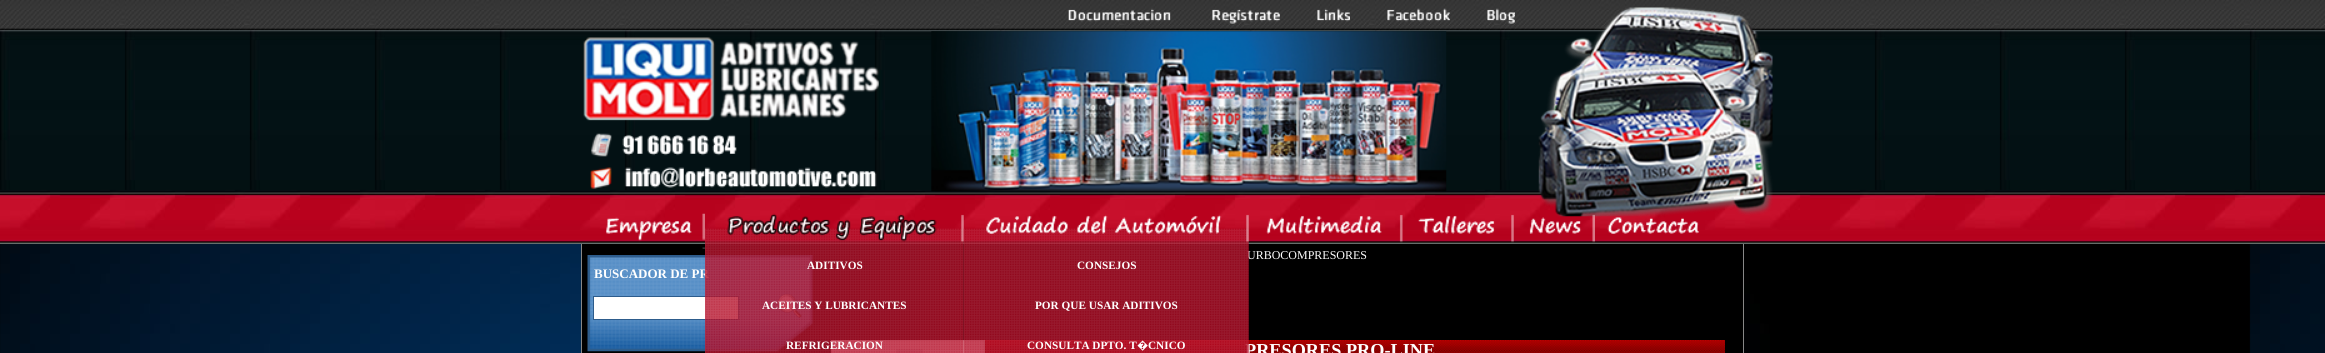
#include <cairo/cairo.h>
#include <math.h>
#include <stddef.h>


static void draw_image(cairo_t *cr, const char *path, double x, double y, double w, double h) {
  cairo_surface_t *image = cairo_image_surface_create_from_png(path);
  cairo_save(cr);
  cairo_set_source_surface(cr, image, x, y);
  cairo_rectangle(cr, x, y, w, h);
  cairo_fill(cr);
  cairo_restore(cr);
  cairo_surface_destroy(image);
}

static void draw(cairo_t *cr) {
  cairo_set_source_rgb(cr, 1, 1, 1);
  cairo_paint(cr);
  draw_image(cr, "images/1.png", 0, 243, 2325, 110);
  cairo_set_source_rgb(cr, 0, 0, 0);
  cairo_rectangle(cr, 582, 244, 1161, 109);
  cairo_fill(cr);
  cairo_set_source_rgb(cr, 135 / 255.0, 135 / 255.0, 135 / 255.0);
  cairo_rectangle(cr, 1743, 244, 1, 109);
  cairo_fill(cr);
  cairo_rectangle(cr, 581, 244, 1, 109);
  cairo_fill(cr);
  draw_image(cr, "images/2.png", 587, 255, 226, 97);
  cairo_set_source_rgb(cr, 1, 1, 1);
  cairo_rectangle(cr, 593.5, 296.5, 145, 23);
  cairo_fill_preserve(cr);
  cairo_set_source_rgb(cr, 45 / 255.0, 92 / 255.0, 140 / 255.0);
  cairo_set_line_width(cr, 1);
  cairo_stroke(cr);
  draw_image(cr, "images/3.png", 777, 293, 25, 25);
  draw_image(cr, "images/4.png", 985, 340, 740, 13);
  cairo_set_source_rgb(cr, 1, 1, 1);
  cairo_rectangle(cr, 831.5, 340.5, 153, 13);
  cairo_fill_preserve(cr);
  cairo_set_source_rgb(cr, 225 / 255.0, 225 / 255.0, 225 / 255.0);
  cairo_stroke(cr);
  draw_image(cr, "images/5.png", 896, 349, 28, 4);
  draw_image(cr, "images/6.png", 0, 0, 2325, 244);
  draw_image(cr, "images/7.png", 583, 31, 864, 161);
  draw_image(cr, "images/8.png", 1538, 7, 235, 210);
  draw_image(cr, "images/9.png", 590, 167, 287, 22);
  draw_image(cr, "images/10.png", 1068, 8, 103, 14);
  draw_image(cr, "images/11.png", 1212, 9, 68, 15);
  draw_image(cr, "images/12.png", 1317, 8, 33, 14);
  draw_image(cr, "images/13.png", 1387, 8, 63, 14);
  draw_image(cr, "images/14.png", 1487, 8, 28, 16);
  draw_image(cr, "images/15.png", 606, 213, 99, 36);
  draw_image(cr, "images/16.png", 1266, 214, 137, 29);
  draw_image(cr, "images/17.png", 1418, 214, 96, 29);
  draw_image(cr, "images/18.png", 1529, 214, 66, 29);
  draw_image(cr, "images/19.png", 1607, 217, 92, 17);
  cairo_select_font_face(cr, "Liberation Serif", CAIRO_FONT_SLANT_NORMAL, CAIRO_FONT_WEIGHT_BOLD);
  cairo_set_font_size(cr, 13);
  cairo_set_source_rgb(cr, 1, 1, 1);
  cairo_move_to(cr, 594, 278);
  cairo_show_text(cr, "BUSCADOR DE PR");
  cairo_select_font_face(cr, "Liberation Serif", CAIRO_FONT_SLANT_NORMAL, CAIRO_FONT_WEIGHT_NORMAL);
  cairo_set_font_size(cr, 12);
  cairo_move_to(cr, 1247, 259);
  cairo_show_text(cr, "URBOCOMPRESORES");
  cairo_select_font_face(cr, "Liberation Serif", CAIRO_FONT_SLANT_NORMAL, CAIRO_FONT_WEIGHT_BOLD);
  cairo_set_font_size(cr, 18.25);
  cairo_move_to(cr, 1245, 356);
  cairo_show_text(cr, "PRESORES PRO-LINE");
  draw_image(cr, "images/21.png", 705, 228, 259, 125);
  draw_image(cr, "images/20.png", 727, 213, 237, 30);
  cairo_set_font_size(cr, 11.25);
  cairo_move_to(cr, 807, 269);
  cairo_show_text(cr, "ADITIVOS");
  cairo_move_to(cr, 762, 309);
  cairo_show_text(cr, "ACEITES Y LUBRICANTES");
  cairo_move_to(cr, 786, 349);
  cairo_show_text(cr, "REFRIGERACION");
  draw_image(cr, "images/23.png", 963, 228, 286, 125);
  draw_image(cr, "images/22.png", 986, 214, 263, 29);
  cairo_move_to(cr, 1077, 269);
  cairo_show_text(cr, "CONSEJOS");
  cairo_move_to(cr, 1035, 309);
  cairo_show_text(cr, "POR QUE USAR ADITIVOS");
  cairo_move_to(cr, 1027, 349);
  cairo_show_text(cr, "CONSULTA DPTO. T");
  cairo_select_font_face(cr, "Noto Sans", CAIRO_FONT_SLANT_NORMAL, CAIRO_FONT_WEIGHT_BOLD);
  cairo_move_to(cr, 1137, 349);
  cairo_show_text(cr, "�");
  cairo_select_font_face(cr, "Liberation Serif", CAIRO_FONT_SLANT_NORMAL, CAIRO_FONT_WEIGHT_BOLD);
  cairo_move_to(cr, 1148, 349);
  cairo_show_text(cr, "CNICO");
}

int main(void) {
  cairo_surface_t *surface = cairo_image_surface_create(CAIRO_FORMAT_RGB24, 2325, 353);
  cairo_t *cr = cairo_create(surface);
  cairo_font_options_t *options = cairo_font_options_create();
  cairo_font_options_set_hint_metrics(options, CAIRO_HINT_METRICS_OFF);
  cairo_font_options_set_hint_style(options, CAIRO_HINT_STYLE_NONE);
  cairo_set_font_options(cr, options);
  cairo_set_miter_limit(cr, 4);
  draw(cr);
  cairo_surface_write_to_png(surface, "out.png");
  cairo_font_options_destroy(options);
  cairo_destroy(cr);
  cairo_surface_destroy(surface);
  return 0;
}
